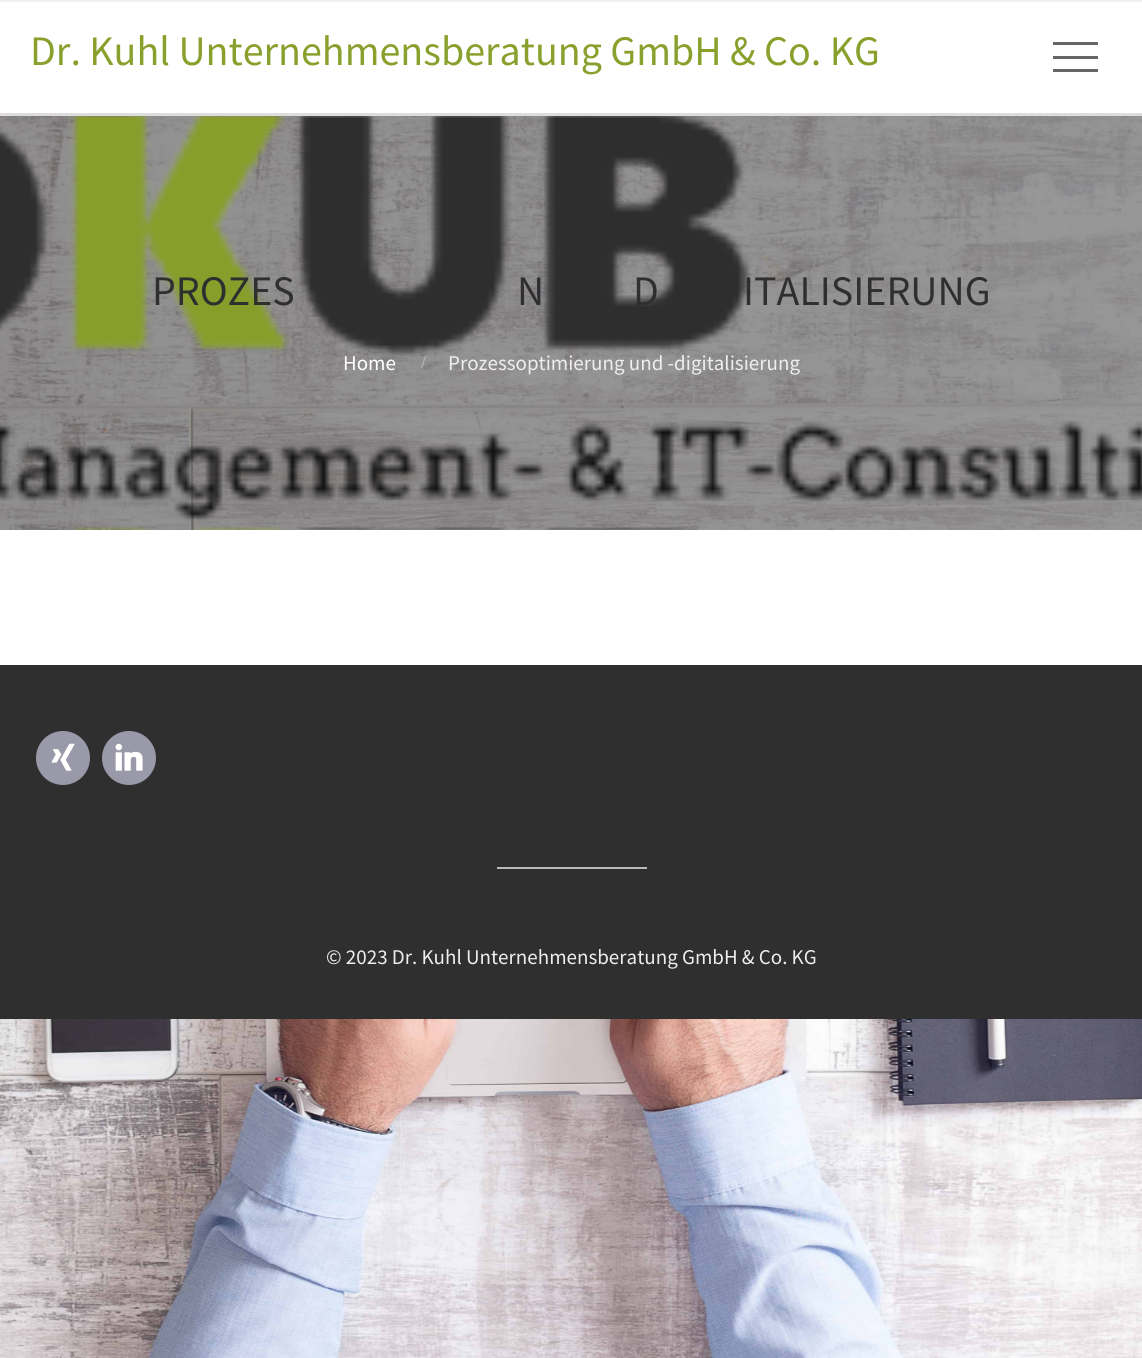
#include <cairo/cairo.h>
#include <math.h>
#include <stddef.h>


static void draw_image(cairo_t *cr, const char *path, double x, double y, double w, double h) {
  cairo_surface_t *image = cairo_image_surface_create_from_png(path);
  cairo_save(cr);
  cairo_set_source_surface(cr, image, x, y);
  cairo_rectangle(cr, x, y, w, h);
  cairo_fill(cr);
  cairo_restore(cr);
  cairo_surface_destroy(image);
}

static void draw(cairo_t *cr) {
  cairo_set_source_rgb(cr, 1, 1, 1);
  cairo_paint(cr);
  draw_image(cr, "images/1.png", 0, 116, 1142, 1242);
  cairo_set_source_rgb(cr, 240 / 255.0, 240 / 255.0, 240 / 255.0);
  cairo_rectangle(cr, 0, 0, 1142, 2);
  cairo_fill(cr);
  cairo_set_source_rgb(cr, 221 / 255.0, 221 / 255.0, 221 / 255.0);
  cairo_rectangle(cr, 0, 113, 1142, 3);
  cairo_fill(cr);
  cairo_set_source_rgb(cr, 102 / 255.0, 102 / 255.0, 102 / 255.0);
  cairo_rectangle(cr, 1053, 42, 45, 3);
  cairo_fill(cr);
  cairo_rectangle(cr, 1053, 69, 45, 3);
  cairo_fill(cr);
  cairo_rectangle(cr, 1053, 56, 45, 3);
  cairo_fill(cr);
  cairo_set_source_rgba(cr, 0, 0, 0, 0.4);
  cairo_rectangle(cr, 0, 116, 1142, 414);
  cairo_fill(cr);
  draw_image(cr, "images/2.png", 0, 116, 1142, 414);
  cairo_set_source_rgb(cr, 1, 1, 1);
  cairo_rectangle(cr, 0, 530, 1142, 135);
  cairo_fill(cr);
  cairo_set_source_rgb(cr, 47 / 255.0, 47 / 255.0, 47 / 255.0);
  cairo_rectangle(cr, 0, 665, 1142, 354);
  cairo_fill(cr);
  cairo_set_source_rgb(cr, 153 / 255.0, 153 / 255.0, 170 / 255.0);
  cairo_arc(cr, 63, 758, 27, 0, 2 * M_PI);
  cairo_fill(cr);
  draw_image(cr, "images/3.png", 51, 743, 24, 28);
  cairo_arc(cr, 129, 758, 27, 0, 2 * M_PI);
  cairo_fill(cr);
  draw_image(cr, "images/4.png", 115, 743, 28, 28);
  cairo_set_source_rgb(cr, 187 / 255.0, 187 / 255.0, 187 / 255.0);
  cairo_rectangle(cr, 497, 867, 150, 2);
  cairo_fill(cr);
  cairo_select_font_face(cr, "Source Sans Pro", CAIRO_FONT_SLANT_NORMAL, CAIRO_FONT_WEIGHT_NORMAL);
  cairo_set_font_size(cr, 42);
  cairo_set_source_rgb(cr, 137 / 255.0, 160 / 255.0, 44 / 255.0);
  cairo_move_to(cr, 30, 65);
  cairo_show_text(cr, "Dr. Kuhl Unternehmensberatung GmbH & Co. KG");
  cairo_set_source_rgb(cr, 47 / 255.0, 47 / 255.0, 47 / 255.0);
  cairo_move_to(cr, 152, 305);
  cairo_show_text(cr, "PROZES");
  cairo_move_to(cr, 517, 305);
  cairo_show_text(cr, "N");
  cairo_move_to(cr, 633, 305);
  cairo_show_text(cr, "D");
  cairo_move_to(cr, 743, 305);
  cairo_show_text(cr, "ITALISIERUNG");
  cairo_set_font_size(cr, 21);
  cairo_set_source_rgb(cr, 1, 1, 1);
  cairo_move_to(cr, 343, 370);
  cairo_show_text(cr, "Home");
  cairo_select_font_face(cr, "Liberation Serif", CAIRO_FONT_SLANT_NORMAL, CAIRO_FONT_WEIGHT_BOLD);
  cairo_set_font_size(cr, 18);
  cairo_set_source_rgb(cr, 181 / 255.0, 181 / 255.0, 181 / 255.0);
  cairo_move_to(cr, 421, 368);
  cairo_show_text(cr, "/");
  cairo_select_font_face(cr, "Source Sans Pro", CAIRO_FONT_SLANT_NORMAL, CAIRO_FONT_WEIGHT_NORMAL);
  cairo_set_font_size(cr, 21);
  cairo_set_source_rgb(cr, 238 / 255.0, 238 / 255.0, 238 / 255.0);
  cairo_move_to(cr, 448, 370);
  cairo_show_text(cr, "Prozessoptimierung und -digitalisierung");
  cairo_move_to(cr, 326, 964);
  cairo_show_text(cr, "© 2023 Dr. Kuhl Unternehmensberatung GmbH & Co. KG");
}

int main(void) {
  cairo_surface_t *surface = cairo_image_surface_create(CAIRO_FORMAT_RGB24, 1142, 1358);
  cairo_t *cr = cairo_create(surface);
  cairo_font_options_t *options = cairo_font_options_create();
  cairo_font_options_set_hint_metrics(options, CAIRO_HINT_METRICS_OFF);
  cairo_font_options_set_hint_style(options, CAIRO_HINT_STYLE_NONE);
  cairo_set_font_options(cr, options);
  cairo_set_miter_limit(cr, 4);
  draw(cr);
  cairo_surface_write_to_png(surface, "out.png");
  cairo_font_options_destroy(options);
  cairo_destroy(cr);
  cairo_surface_destroy(surface);
  return 0;
}
